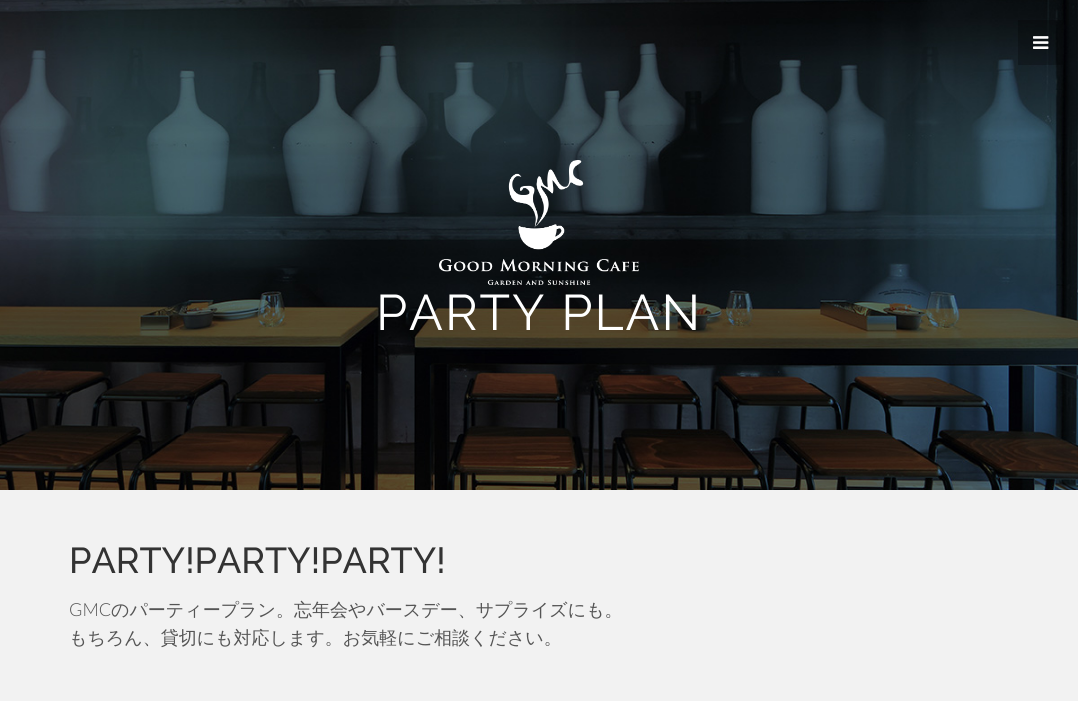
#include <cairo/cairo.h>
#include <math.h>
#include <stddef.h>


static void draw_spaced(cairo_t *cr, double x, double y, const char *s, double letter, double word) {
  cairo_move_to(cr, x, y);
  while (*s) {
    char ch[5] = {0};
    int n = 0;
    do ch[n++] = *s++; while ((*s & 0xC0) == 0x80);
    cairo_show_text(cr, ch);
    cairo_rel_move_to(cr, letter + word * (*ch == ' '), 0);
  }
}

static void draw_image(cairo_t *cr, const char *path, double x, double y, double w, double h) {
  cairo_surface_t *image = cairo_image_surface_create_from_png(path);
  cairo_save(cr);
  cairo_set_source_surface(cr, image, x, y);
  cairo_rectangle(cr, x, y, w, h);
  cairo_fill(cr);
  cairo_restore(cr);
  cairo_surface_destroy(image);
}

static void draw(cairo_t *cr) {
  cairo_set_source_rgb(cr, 242 / 255.0, 242 / 255.0, 242 / 255.0);
  cairo_paint(cr);
  draw_image(cr, "images/2.png", 0, 0, 1078, 490);
  cairo_set_source_rgba(cr, 0, 0, 0, 0.25);
  cairo_rectangle(cr, 1018, 20, 45, 45);
  cairo_fill(cr);
  draw_image(cr, "images/1.png", 1033, 36, 16, 13);
  draw_image(cr, "images/3.png", 439, 160, 200, 125);
  cairo_set_source_rgb(cr, 1, 1, 1);
  cairo_rectangle(cr, 0, 701, 1078, 2);
  cairo_fill(cr);
  cairo_select_font_face(cr, "Raleway", CAIRO_FONT_SLANT_NORMAL, CAIRO_FONT_WEIGHT_NORMAL);
  cairo_set_font_size(cr, 50);
  draw_spaced(cr, 376, 330, "PARTY PLAN", 2, 0);
  cairo_select_font_face(cr, "Raleway Medium", CAIRO_FONT_SLANT_NORMAL, CAIRO_FONT_WEIGHT_NORMAL);
  cairo_set_font_size(cr, 36);
  cairo_set_source_rgb(cr, 51 / 255.0, 51 / 255.0, 51 / 255.0);
  cairo_move_to(cr, 69, 573);
  cairo_show_text(cr, "PARTY!PARTY!PARTY!");
  cairo_select_font_face(cr, "Lato Light", CAIRO_FONT_SLANT_NORMAL, CAIRO_FONT_WEIGHT_NORMAL);
  cairo_set_font_size(cr, 18);
  cairo_set_source_rgb(cr, 85 / 255.0, 85 / 255.0, 85 / 255.0);
  cairo_move_to(cr, 69, 616);
  cairo_show_text(cr, "GMC");
  cairo_select_font_face(cr, "WenQuanYi Zen Hei Medium", CAIRO_FONT_SLANT_NORMAL, CAIRO_FONT_WEIGHT_NORMAL);
  cairo_move_to(cr, 111, 616);
  cairo_show_text(cr, "のパーティープラン。忘年会やバースデー、サプライズにも。");
  cairo_move_to(cr, 69, 644);
  cairo_show_text(cr, "もちろん、貸切にも対応します。お気軽にご相談ください。");
}

int main(void) {
  cairo_surface_t *surface = cairo_image_surface_create(CAIRO_FORMAT_RGB24, 1078, 703);
  cairo_t *cr = cairo_create(surface);
  cairo_font_options_t *options = cairo_font_options_create();
  cairo_font_options_set_hint_metrics(options, CAIRO_HINT_METRICS_OFF);
  cairo_font_options_set_hint_style(options, CAIRO_HINT_STYLE_NONE);
  cairo_set_font_options(cr, options);
  cairo_set_miter_limit(cr, 4);
  draw(cr);
  cairo_surface_write_to_png(surface, "out.png");
  cairo_font_options_destroy(options);
  cairo_destroy(cr);
  cairo_surface_destroy(surface);
  return 0;
}
